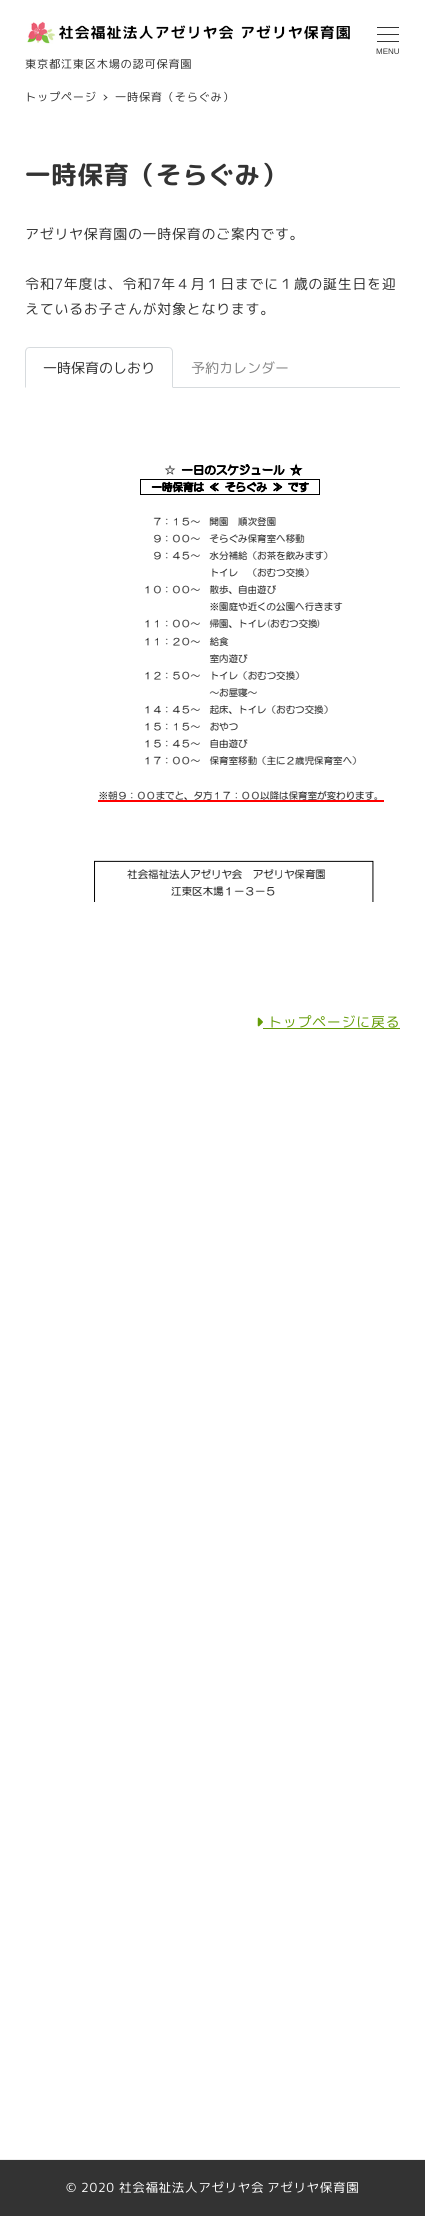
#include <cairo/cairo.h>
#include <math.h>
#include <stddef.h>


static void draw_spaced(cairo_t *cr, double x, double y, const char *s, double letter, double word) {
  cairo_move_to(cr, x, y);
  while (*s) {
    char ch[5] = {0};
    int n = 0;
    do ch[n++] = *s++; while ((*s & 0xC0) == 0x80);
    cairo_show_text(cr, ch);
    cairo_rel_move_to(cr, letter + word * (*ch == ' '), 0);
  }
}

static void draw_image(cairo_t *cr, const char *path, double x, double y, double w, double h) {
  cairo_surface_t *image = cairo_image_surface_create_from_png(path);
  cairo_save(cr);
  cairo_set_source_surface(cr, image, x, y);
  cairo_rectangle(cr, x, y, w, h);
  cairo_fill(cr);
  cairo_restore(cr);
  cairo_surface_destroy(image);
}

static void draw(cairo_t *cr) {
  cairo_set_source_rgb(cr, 1, 1, 1);
  cairo_paint(cr);
  cairo_set_source_rgb(cr, 51 / 255.0, 51 / 255.0, 51 / 255.0);
  cairo_rectangle(cr, 377, 27, 22, 1);
  cairo_fill(cr);
  cairo_rectangle(cr, 377, 34, 22, 1);
  cairo_fill(cr);
  cairo_rectangle(cr, 377, 41, 22, 1);
  cairo_fill(cr);
  draw_image(cr, "images/1.png", 27, 21, 323, 23);
  cairo_new_path(cr);
  cairo_move_to(cr, 104, 94.5);
  cairo_line_to(cr, 107.5, 97.5);
  cairo_line_to(cr, 106.5, 98);
  cairo_line_to(cr, 103.5, 95);
  cairo_close_path(cr);
  cairo_fill(cr);
  cairo_new_path(cr);
  cairo_move_to(cr, 106.5, 97);
  cairo_line_to(cr, 107.5, 97.5);
  cairo_line_to(cr, 104, 100.5);
  cairo_line_to(cr, 103.5, 100);
  cairo_close_path(cr);
  cairo_fill(cr);
  cairo_set_source_rgb(cr, 215 / 255.0, 219 / 255.0, 222 / 255.0);
  cairo_rectangle(cr, 173, 387, 227, 1);
  cairo_fill(cr);
  cairo_new_path(cr);
  cairo_move_to(cr, 30, 347);
  cairo_curve_to(cr, 28, 347, 27, 348, 26, 348);
  cairo_line_to(cr, 27, 349);
  cairo_curve_to(cr, 28, 348, 29, 348, 30, 348);
  cairo_line_to(cr, 168, 348);
  cairo_curve_to(cr, 169, 348, 170, 348, 171, 349);
  cairo_line_to(cr, 172, 348);
  cairo_curve_to(cr, 171, 348, 170, 347, 168, 347);
  cairo_close_path(cr);
  cairo_fill(cr);
  cairo_new_path(cr);
  cairo_move_to(cr, 173, 388);
  cairo_line_to(cr, 173, 352);
  cairo_curve_to(cr, 173, 350.5, 172.5, 349, 171.5, 348.5);
  cairo_line_to(cr, 171, 349);
  cairo_curve_to(cr, 171.5, 350, 172, 351, 172, 352);
  cairo_line_to(cr, 172, 387);
  cairo_close_path(cr);
  cairo_fill(cr);
  cairo_new_path(cr);
  cairo_move_to(cr, 25, 388);
  cairo_line_to(cr, 26, 387);
  cairo_line_to(cr, 26, 352);
  cairo_curve_to(cr, 26, 351, 26.5, 350, 27, 349);
  cairo_line_to(cr, 26.5, 348.5);
  cairo_curve_to(cr, 25.5, 349, 25, 350.5, 25, 352);
  cairo_close_path(cr);
  cairo_fill(cr);
  draw_image(cr, "images/2.png", 94, 463, 290, 439);
  draw_image(cr, "images/3.png", 257, 1017, 6, 10);
  cairo_set_source_rgb(cr, 100 / 255.0, 156 / 255.0, 7 / 255.0);
  cairo_rectangle(cr, 263, 1028, 137, 1);
  cairo_fill(cr);
  cairo_set_source_rgb(cr, 238 / 255.0, 238 / 255.0, 238 / 255.0);
  cairo_rectangle(cr, 0, 2159, 425, 1);
  cairo_fill(cr);
  cairo_set_source_rgb(cr, 51 / 255.0, 51 / 255.0, 51 / 255.0);
  cairo_rectangle(cr, 0, 2160, 425, 56);
  cairo_fill(cr);
  cairo_select_font_face(cr, "Liberation Sans", CAIRO_FONT_SLANT_NORMAL, CAIRO_FONT_WEIGHT_NORMAL);
  cairo_set_font_size(cr, 8);
  cairo_move_to(cr, 376, 54);
  cairo_show_text(cr, "MENU");
  cairo_select_font_face(cr, "Rounded Mplus 1c", CAIRO_FONT_SLANT_NORMAL, CAIRO_FONT_WEIGHT_NORMAL);
  cairo_set_font_size(cr, 11.25);
  draw_spaced(cr, 25, 68, "東京都江東区木場の認可保育園", 0.7, 0);
  draw_spaced(cr, 25, 101, "トップページ", 0.7, 0);
  draw_spaced(cr, 115, 101, "一時保育（そらぐみ）", 0.7, 0);
  cairo_select_font_face(cr, "Rounded Mplus 1c Bold", CAIRO_FONT_SLANT_NORMAL, CAIRO_FONT_WEIGHT_BOLD);
  cairo_set_font_size(cr, 25.5);
  draw_spaced(cr, 25, 184, "一時保育（そらぐみ）", 0.7, 0);
  cairo_select_font_face(cr, "Rounded Mplus 1c", CAIRO_FONT_SLANT_NORMAL, CAIRO_FONT_WEIGHT_NORMAL);
  cairo_set_font_size(cr, 14);
  draw_spaced(cr, 25, 239, "アゼリヤ保育園の一時保育のご案内です。", 0.7, 0);
  draw_spaced(cr, 25, 289, "令和7年度は、令和7年４月１日までに１歳の誕生日を迎", 0.7, 0);
  draw_spaced(cr, 25, 314, "えているお子さんが対象となります。", 0.7, 0);
  cairo_move_to(cr, 43, 373);
  cairo_show_text(cr, "一時保育のしおり");
  cairo_set_source_rgb(cr, 133 / 255.0, 133 / 255.0, 133 / 255.0);
  cairo_move_to(cr, 191, 373);
  cairo_show_text(cr, "予約カレンダー");
  cairo_set_source_rgb(cr, 100 / 255.0, 156 / 255.0, 7 / 255.0);
  draw_spaced(cr, 268, 1027, "トップページに戻る", 0.7, 0);
  cairo_set_font_size(cr, 12.5);
  cairo_set_source_rgb(cr, 1, 1, 1);
  draw_spaced(cr, 66, 2192, "©", 0.7, 0);
  draw_spaced(cr, 81, 2192, "2020", 0.7, 0);
  draw_spaced(cr, 119, 2192, "社会福祉法人アゼリヤ会", 0.7, 0);
  draw_spaced(cr, 267, 2192, "アゼリヤ保育園", 0.7, 0);
}

int main(void) {
  cairo_surface_t *surface = cairo_image_surface_create(CAIRO_FORMAT_RGB24, 425, 2216);
  cairo_t *cr = cairo_create(surface);
  cairo_font_options_t *options = cairo_font_options_create();
  cairo_font_options_set_hint_metrics(options, CAIRO_HINT_METRICS_OFF);
  cairo_font_options_set_hint_style(options, CAIRO_HINT_STYLE_NONE);
  cairo_set_font_options(cr, options);
  cairo_set_miter_limit(cr, 4);
  draw(cr);
  cairo_surface_write_to_png(surface, "out.png");
  cairo_font_options_destroy(options);
  cairo_destroy(cr);
  cairo_surface_destroy(surface);
  return 0;
}
